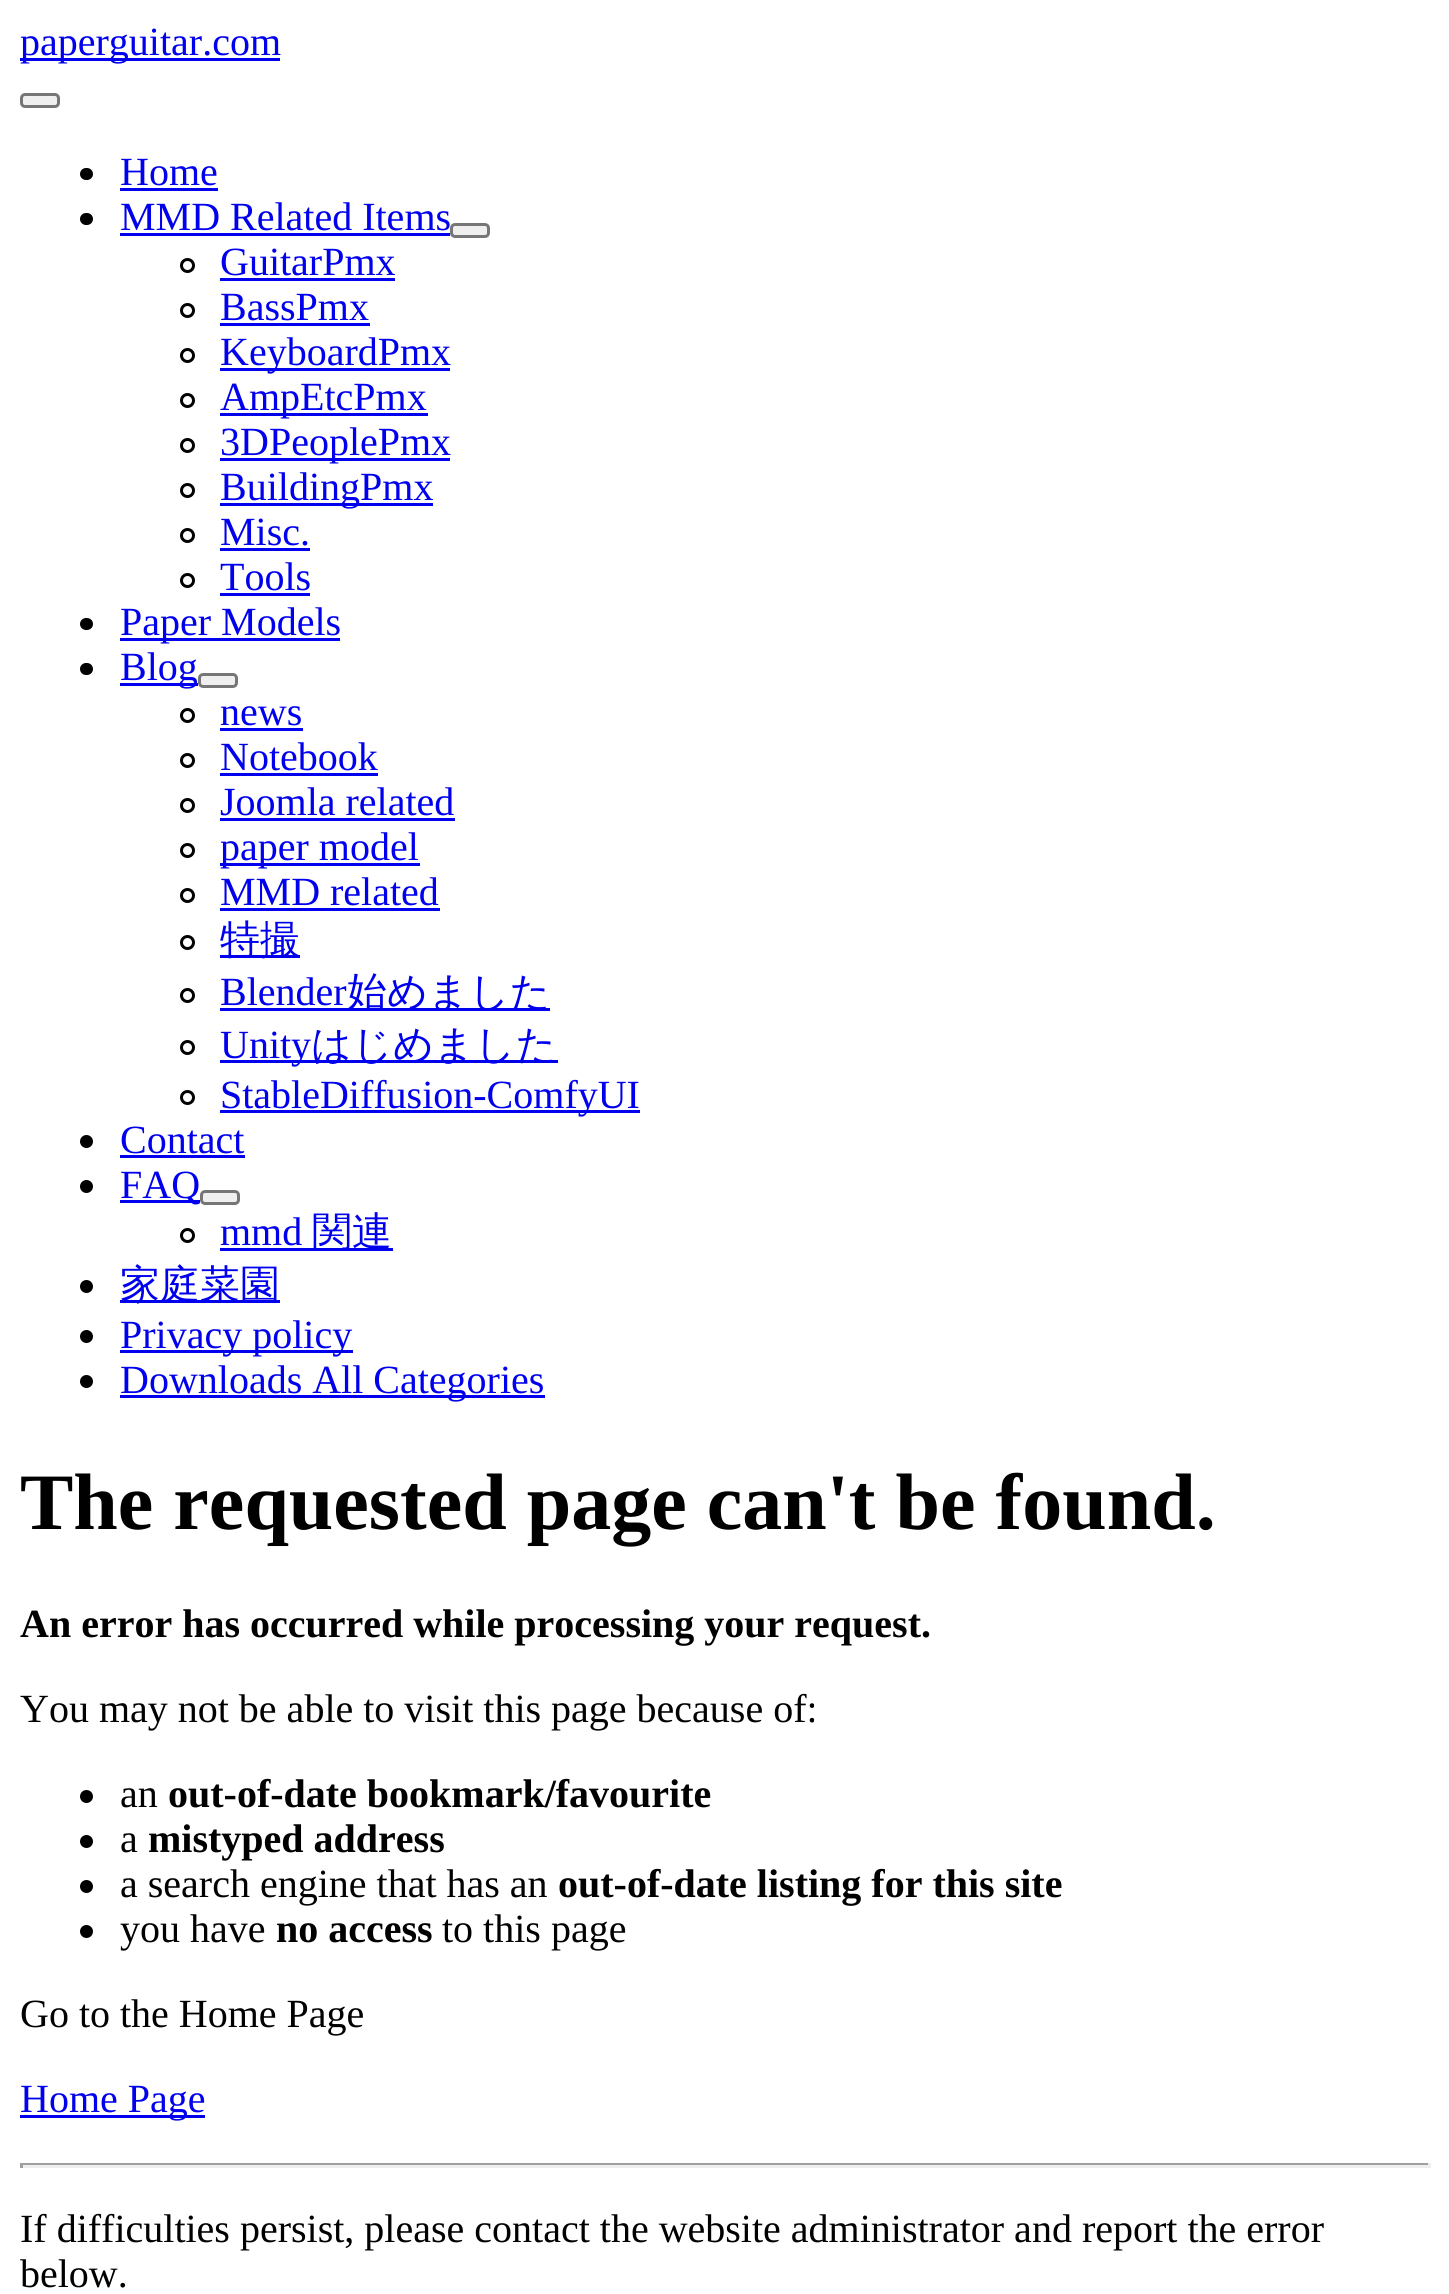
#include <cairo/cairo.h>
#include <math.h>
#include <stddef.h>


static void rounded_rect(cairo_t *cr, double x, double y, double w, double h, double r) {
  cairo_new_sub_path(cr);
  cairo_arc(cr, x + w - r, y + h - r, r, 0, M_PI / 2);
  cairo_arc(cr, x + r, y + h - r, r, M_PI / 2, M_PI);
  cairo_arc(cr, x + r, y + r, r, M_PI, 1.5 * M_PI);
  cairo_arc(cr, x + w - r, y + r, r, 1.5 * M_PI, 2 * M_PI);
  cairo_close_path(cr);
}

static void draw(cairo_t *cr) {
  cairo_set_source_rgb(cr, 1, 1, 1);
  cairo_paint(cr);
  cairo_set_source_rgb(cr, 0, 0, 238 / 255.0);
  cairo_rectangle(cr, 20, 58, 260, 3);
  cairo_fill(cr);
  cairo_set_source_rgb(cr, 239 / 255.0, 239 / 255.0, 239 / 255.0);
  rounded_rect(cr, 21.5, 94.5, 37, 12, 3.5);
  cairo_fill_preserve(cr);
  cairo_set_source_rgb(cr, 118 / 255.0, 118 / 255.0, 118 / 255.0);
  cairo_set_line_width(cr, 3);
  cairo_stroke(cr);
  cairo_set_source_rgb(cr, 0, 0, 0);
  rounded_rect(cr, 80, 168, 13, 12, 6);
  cairo_fill(cr);
  cairo_set_source_rgb(cr, 0, 0, 238 / 255.0);
  cairo_rectangle(cr, 120, 188, 98, 3);
  cairo_fill(cr);
  cairo_set_source_rgb(cr, 0, 0, 0);
  rounded_rect(cr, 80, 213, 13, 12, 6);
  cairo_fill(cr);
  cairo_set_source_rgb(cr, 0, 0, 238 / 255.0);
  cairo_rectangle(cr, 120, 233, 330, 3);
  cairo_fill(cr);
  cairo_set_source_rgb(cr, 239 / 255.0, 239 / 255.0, 239 / 255.0);
  rounded_rect(cr, 451.5, 224.5, 37, 12, 3.5);
  cairo_fill_preserve(cr);
  cairo_set_source_rgb(cr, 118 / 255.0, 118 / 255.0, 118 / 255.0);
  cairo_stroke(cr);
  cairo_arc(cr, 187.5, 265.5, 6, 0, 2 * M_PI);
  cairo_set_source_rgb(cr, 0, 0, 0);
  cairo_stroke(cr);
  cairo_set_source_rgb(cr, 0, 0, 238 / 255.0);
  cairo_rectangle(cr, 220, 278, 175, 3);
  cairo_fill(cr);
  cairo_arc(cr, 187.5, 310.5, 6, 0, 2 * M_PI);
  cairo_set_source_rgb(cr, 0, 0, 0);
  cairo_stroke(cr);
  cairo_set_source_rgb(cr, 0, 0, 238 / 255.0);
  cairo_rectangle(cr, 220, 323, 150, 3);
  cairo_fill(cr);
  cairo_arc(cr, 187.5, 355.5, 6, 0, 2 * M_PI);
  cairo_set_source_rgb(cr, 0, 0, 0);
  cairo_stroke(cr);
  cairo_set_source_rgb(cr, 0, 0, 238 / 255.0);
  cairo_rectangle(cr, 220, 368, 230, 3);
  cairo_fill(cr);
  cairo_arc(cr, 187.5, 400.5, 6, 0, 2 * M_PI);
  cairo_set_source_rgb(cr, 0, 0, 0);
  cairo_stroke(cr);
  cairo_set_source_rgb(cr, 0, 0, 238 / 255.0);
  cairo_rectangle(cr, 220, 413, 208, 3);
  cairo_fill(cr);
  cairo_arc(cr, 187.5, 445.5, 6, 0, 2 * M_PI);
  cairo_set_source_rgb(cr, 0, 0, 0);
  cairo_stroke(cr);
  cairo_set_source_rgb(cr, 0, 0, 238 / 255.0);
  cairo_rectangle(cr, 220, 458, 230, 3);
  cairo_fill(cr);
  cairo_arc(cr, 187.5, 490.5, 6, 0, 2 * M_PI);
  cairo_set_source_rgb(cr, 0, 0, 0);
  cairo_stroke(cr);
  cairo_set_source_rgb(cr, 0, 0, 238 / 255.0);
  cairo_rectangle(cr, 220, 503, 213, 3);
  cairo_fill(cr);
  cairo_arc(cr, 187.5, 535.5, 6, 0, 2 * M_PI);
  cairo_set_source_rgb(cr, 0, 0, 0);
  cairo_stroke(cr);
  cairo_set_source_rgb(cr, 0, 0, 238 / 255.0);
  cairo_rectangle(cr, 220, 548, 90, 3);
  cairo_fill(cr);
  cairo_arc(cr, 187.5, 580.5, 6, 0, 2 * M_PI);
  cairo_set_source_rgb(cr, 0, 0, 0);
  cairo_stroke(cr);
  cairo_set_source_rgb(cr, 0, 0, 238 / 255.0);
  cairo_rectangle(cr, 220, 593, 90, 3);
  cairo_fill(cr);
  cairo_set_source_rgb(cr, 0, 0, 0);
  rounded_rect(cr, 80, 618, 13, 12, 6);
  cairo_fill(cr);
  cairo_set_source_rgb(cr, 0, 0, 238 / 255.0);
  cairo_rectangle(cr, 120, 638, 220, 3);
  cairo_fill(cr);
  cairo_set_source_rgb(cr, 0, 0, 0);
  rounded_rect(cr, 80, 663, 13, 12, 6);
  cairo_fill(cr);
  cairo_set_source_rgb(cr, 0, 0, 238 / 255.0);
  cairo_rectangle(cr, 120, 683, 78, 3);
  cairo_fill(cr);
  cairo_set_source_rgb(cr, 239 / 255.0, 239 / 255.0, 239 / 255.0);
  rounded_rect(cr, 199.5, 674.5, 37, 12, 3.5);
  cairo_fill_preserve(cr);
  cairo_set_source_rgb(cr, 118 / 255.0, 118 / 255.0, 118 / 255.0);
  cairo_stroke(cr);
  cairo_arc(cr, 187.5, 715.5, 6, 0, 2 * M_PI);
  cairo_set_source_rgb(cr, 0, 0, 0);
  cairo_stroke(cr);
  cairo_set_source_rgb(cr, 0, 0, 238 / 255.0);
  cairo_rectangle(cr, 220, 728, 83, 3);
  cairo_fill(cr);
  cairo_arc(cr, 187.5, 760.5, 6, 0, 2 * M_PI);
  cairo_set_source_rgb(cr, 0, 0, 0);
  cairo_stroke(cr);
  cairo_set_source_rgb(cr, 0, 0, 238 / 255.0);
  cairo_rectangle(cr, 220, 773, 158, 3);
  cairo_fill(cr);
  cairo_arc(cr, 187.5, 805.5, 6, 0, 2 * M_PI);
  cairo_set_source_rgb(cr, 0, 0, 0);
  cairo_stroke(cr);
  cairo_set_source_rgb(cr, 0, 0, 238 / 255.0);
  cairo_rectangle(cr, 220, 818, 235, 3);
  cairo_fill(cr);
  cairo_arc(cr, 187.5, 850.5, 6, 0, 2 * M_PI);
  cairo_set_source_rgb(cr, 0, 0, 0);
  cairo_stroke(cr);
  cairo_set_source_rgb(cr, 0, 0, 238 / 255.0);
  cairo_rectangle(cr, 220, 863, 200, 3);
  cairo_fill(cr);
  cairo_arc(cr, 187.5, 895.5, 6, 0, 2 * M_PI);
  cairo_set_source_rgb(cr, 0, 0, 0);
  cairo_stroke(cr);
  cairo_set_source_rgb(cr, 0, 0, 238 / 255.0);
  cairo_rectangle(cr, 220, 908, 220, 3);
  cairo_fill(cr);
  cairo_arc(cr, 187.5, 942.5, 6, 0, 2 * M_PI);
  cairo_set_source_rgb(cr, 0, 0, 0);
  cairo_stroke(cr);
  cairo_set_source_rgb(cr, 0, 0, 238 / 255.0);
  cairo_rectangle(cr, 220, 955, 80, 3);
  cairo_fill(cr);
  cairo_arc(cr, 187.5, 995.5, 6, 0, 2 * M_PI);
  cairo_set_source_rgb(cr, 0, 0, 0);
  cairo_stroke(cr);
  cairo_set_source_rgb(cr, 0, 0, 238 / 255.0);
  cairo_rectangle(cr, 220, 1008, 330, 3);
  cairo_fill(cr);
  cairo_arc(cr, 187.5, 1047.5, 6, 0, 2 * M_PI);
  cairo_set_source_rgb(cr, 0, 0, 0);
  cairo_stroke(cr);
  cairo_set_source_rgb(cr, 0, 0, 238 / 255.0);
  cairo_rectangle(cr, 220, 1060, 338, 3);
  cairo_fill(cr);
  cairo_arc(cr, 187.5, 1097.5, 6, 0, 2 * M_PI);
  cairo_set_source_rgb(cr, 0, 0, 0);
  cairo_stroke(cr);
  cairo_set_source_rgb(cr, 0, 0, 238 / 255.0);
  cairo_rectangle(cr, 220, 1110, 420, 3);
  cairo_fill(cr);
  cairo_set_source_rgb(cr, 0, 0, 0);
  cairo_arc(cr, 86.5, 1141.5, 6.5, 0, 2 * M_PI);
  cairo_fill(cr);
  cairo_set_source_rgb(cr, 0, 0, 238 / 255.0);
  cairo_rectangle(cr, 120, 1155, 125, 3);
  cairo_fill(cr);
  cairo_set_source_rgb(cr, 0, 0, 0);
  cairo_arc(cr, 86.5, 1186.5, 6.5, 0, 2 * M_PI);
  cairo_fill(cr);
  cairo_set_source_rgb(cr, 0, 0, 238 / 255.0);
  cairo_rectangle(cr, 120, 1200, 80, 3);
  cairo_fill(cr);
  cairo_set_source_rgb(cr, 239 / 255.0, 239 / 255.0, 239 / 255.0);
  rounded_rect(cr, 201.5, 1191.5, 37, 12, 3.5);
  cairo_fill_preserve(cr);
  cairo_set_source_rgb(cr, 118 / 255.0, 118 / 255.0, 118 / 255.0);
  cairo_stroke(cr);
  cairo_arc(cr, 187.5, 1235.5, 6, 0, 2 * M_PI);
  cairo_set_source_rgb(cr, 0, 0, 0);
  cairo_stroke(cr);
  cairo_set_source_rgb(cr, 0, 0, 238 / 255.0);
  cairo_rectangle(cr, 220, 1248, 173, 3);
  cairo_fill(cr);
  cairo_set_source_rgb(cr, 0, 0, 0);
  cairo_arc(cr, 86.5, 1286.5, 6.5, 0, 2 * M_PI);
  cairo_fill(cr);
  cairo_set_source_rgb(cr, 0, 0, 238 / 255.0);
  cairo_rectangle(cr, 120, 1300, 160, 3);
  cairo_fill(cr);
  cairo_set_source_rgb(cr, 0, 0, 0);
  cairo_arc(cr, 86.5, 1336.5, 6.5, 0, 2 * M_PI);
  cairo_fill(cr);
  cairo_set_source_rgb(cr, 0, 0, 238 / 255.0);
  cairo_rectangle(cr, 120, 1350, 233, 3);
  cairo_fill(cr);
  cairo_set_source_rgb(cr, 0, 0, 0);
  cairo_arc(cr, 86.5, 1381.5, 6.5, 0, 2 * M_PI);
  cairo_fill(cr);
  cairo_set_source_rgb(cr, 0, 0, 238 / 255.0);
  cairo_rectangle(cr, 120, 1395, 425, 3);
  cairo_fill(cr);
  cairo_set_source_rgb(cr, 0, 0, 0);
  cairo_arc(cr, 86.5, 1796.5, 6.5, 0, 2 * M_PI);
  cairo_fill(cr);
  cairo_arc(cr, 86.5, 1841.5, 6.5, 0, 2 * M_PI);
  cairo_fill(cr);
  cairo_arc(cr, 86.5, 1886.5, 6.5, 0, 2 * M_PI);
  cairo_fill(cr);
  cairo_arc(cr, 86.5, 1931.5, 6.5, 0, 2 * M_PI);
  cairo_fill(cr);
  cairo_set_source_rgb(cr, 0, 0, 238 / 255.0);
  cairo_rectangle(cr, 20, 2115, 185, 3);
  cairo_fill(cr);
  cairo_set_source_rgb(cr, 159 / 255.0, 159 / 255.0, 159 / 255.0);
  cairo_rectangle(cr, 20, 2163, 1410, 2);
  cairo_fill(cr);
  cairo_set_source_rgb(cr, 238 / 255.0, 238 / 255.0, 238 / 255.0);
  cairo_rectangle(cr, 1428, 2163, 3, 5);
  cairo_fill(cr);
  cairo_rectangle(cr, 20, 2165, 1410, 3);
  cairo_fill(cr);
  cairo_set_source_rgb(cr, 159 / 255.0, 159 / 255.0, 159 / 255.0);
  cairo_rectangle(cr, 20, 2163, 3, 5);
  cairo_fill(cr);
  cairo_select_font_face(cr, "Liberation Serif", CAIRO_FONT_SLANT_NORMAL, CAIRO_FONT_WEIGHT_NORMAL);
  cairo_set_font_size(cr, 40);
  cairo_set_source_rgb(cr, 0, 0, 238 / 255.0);
  cairo_move_to(cr, 20, 55);
  cairo_show_text(cr, "paperguitar.com");
  cairo_move_to(cr, 120, 185);
  cairo_show_text(cr, "Home");
  cairo_move_to(cr, 120, 230);
  cairo_show_text(cr, "MMD Related Items");
  cairo_move_to(cr, 220, 275);
  cairo_show_text(cr, "GuitarPmx");
  cairo_move_to(cr, 220, 320);
  cairo_show_text(cr, "BassPmx");
  cairo_move_to(cr, 220, 365);
  cairo_show_text(cr, "KeyboardPmx");
  cairo_move_to(cr, 220, 410);
  cairo_show_text(cr, "AmpEtcPmx");
  cairo_move_to(cr, 220, 455);
  cairo_show_text(cr, "3DPeoplePmx");
  cairo_move_to(cr, 220, 500);
  cairo_show_text(cr, "BuildingPmx");
  cairo_move_to(cr, 220, 545);
  cairo_show_text(cr, "Misc.");
  cairo_move_to(cr, 220, 590);
  cairo_show_text(cr, "Tools");
  cairo_move_to(cr, 120, 635);
  cairo_show_text(cr, "Paper Models");
  cairo_move_to(cr, 120, 680);
  cairo_show_text(cr, "Blog");
  cairo_move_to(cr, 220, 725);
  cairo_show_text(cr, "news");
  cairo_move_to(cr, 220, 770);
  cairo_show_text(cr, "Notebook");
  cairo_move_to(cr, 220, 815);
  cairo_show_text(cr, "Joomla related");
  cairo_move_to(cr, 220, 860);
  cairo_show_text(cr, "paper model");
  cairo_move_to(cr, 220, 905);
  cairo_show_text(cr, "MMD related");
  cairo_select_font_face(cr, "WenQuanYi Zen Hei Medium", CAIRO_FONT_SLANT_NORMAL, CAIRO_FONT_WEIGHT_NORMAL);
  cairo_move_to(cr, 220, 953);
  cairo_show_text(cr, "特撮");
  cairo_select_font_face(cr, "Liberation Serif", CAIRO_FONT_SLANT_NORMAL, CAIRO_FONT_WEIGHT_NORMAL);
  cairo_move_to(cr, 220, 1005);
  cairo_show_text(cr, "Blender");
  cairo_select_font_face(cr, "WenQuanYi Zen Hei Medium", CAIRO_FONT_SLANT_NORMAL, CAIRO_FONT_WEIGHT_NORMAL);
  cairo_move_to(cr, 347, 1005);
  cairo_show_text(cr, "始めました");
  cairo_select_font_face(cr, "Liberation Serif", CAIRO_FONT_SLANT_NORMAL, CAIRO_FONT_WEIGHT_NORMAL);
  cairo_move_to(cr, 220, 1058);
  cairo_show_text(cr, "Unity");
  cairo_select_font_face(cr, "WenQuanYi Zen Hei Medium", CAIRO_FONT_SLANT_NORMAL, CAIRO_FONT_WEIGHT_NORMAL);
  cairo_move_to(cr, 311, 1058);
  cairo_show_text(cr, "はじめました");
  cairo_select_font_face(cr, "Liberation Serif", CAIRO_FONT_SLANT_NORMAL, CAIRO_FONT_WEIGHT_NORMAL);
  cairo_move_to(cr, 220, 1108);
  cairo_show_text(cr, "StableDiffusion-ComfyUI");
  cairo_move_to(cr, 120, 1153);
  cairo_show_text(cr, "Contact");
  cairo_move_to(cr, 120, 1198);
  cairo_show_text(cr, "FAQ");
  cairo_move_to(cr, 220, 1245);
  cairo_show_text(cr, "mmd");
  cairo_select_font_face(cr, "WenQuanYi Zen Hei Medium", CAIRO_FONT_SLANT_NORMAL, CAIRO_FONT_WEIGHT_NORMAL);
  cairo_move_to(cr, 312, 1245);
  cairo_show_text(cr, "関連");
  cairo_move_to(cr, 120, 1298);
  cairo_show_text(cr, "家庭菜園");
  cairo_select_font_face(cr, "Liberation Serif", CAIRO_FONT_SLANT_NORMAL, CAIRO_FONT_WEIGHT_NORMAL);
  cairo_move_to(cr, 120, 1348);
  cairo_show_text(cr, "Privacy policy");
  cairo_move_to(cr, 120, 1393);
  cairo_show_text(cr, "Downloads All Categories");
  cairo_select_font_face(cr, "Liberation Serif", CAIRO_FONT_SLANT_NORMAL, CAIRO_FONT_WEIGHT_BOLD);
  cairo_set_font_size(cr, 80);
  cairo_set_source_rgb(cr, 0, 0, 0);
  cairo_move_to(cr, 20, 1529);
  cairo_show_text(cr, "The requested page can't be found.");
  cairo_set_font_size(cr, 40);
  cairo_move_to(cr, 20, 1637);
  cairo_show_text(cr, "An error has occurred while processing your request.");
  cairo_select_font_face(cr, "Liberation Serif", CAIRO_FONT_SLANT_NORMAL, CAIRO_FONT_WEIGHT_NORMAL);
  cairo_move_to(cr, 20, 1722);
  cairo_show_text(cr, "You may not be able to visit this page because of:");
  cairo_move_to(cr, 120, 1807);
  cairo_show_text(cr, "an");
  cairo_select_font_face(cr, "Liberation Serif", CAIRO_FONT_SLANT_NORMAL, CAIRO_FONT_WEIGHT_BOLD);
  cairo_move_to(cr, 168, 1807);
  cairo_show_text(cr, "out-of-date bookmark/favourite");
  cairo_select_font_face(cr, "Liberation Serif", CAIRO_FONT_SLANT_NORMAL, CAIRO_FONT_WEIGHT_NORMAL);
  cairo_move_to(cr, 120, 1852);
  cairo_show_text(cr, "a");
  cairo_select_font_face(cr, "Liberation Serif", CAIRO_FONT_SLANT_NORMAL, CAIRO_FONT_WEIGHT_BOLD);
  cairo_move_to(cr, 148, 1852);
  cairo_show_text(cr, "mistyped address");
  cairo_select_font_face(cr, "Liberation Serif", CAIRO_FONT_SLANT_NORMAL, CAIRO_FONT_WEIGHT_NORMAL);
  cairo_move_to(cr, 120, 1897);
  cairo_show_text(cr, "a search engine that has an");
  cairo_select_font_face(cr, "Liberation Serif", CAIRO_FONT_SLANT_NORMAL, CAIRO_FONT_WEIGHT_BOLD);
  cairo_move_to(cr, 558, 1897);
  cairo_show_text(cr, "out-of-date listing for this site");
  cairo_select_font_face(cr, "Liberation Serif", CAIRO_FONT_SLANT_NORMAL, CAIRO_FONT_WEIGHT_NORMAL);
  cairo_move_to(cr, 120, 1942);
  cairo_show_text(cr, "you have");
  cairo_select_font_face(cr, "Liberation Serif", CAIRO_FONT_SLANT_NORMAL, CAIRO_FONT_WEIGHT_BOLD);
  cairo_move_to(cr, 276, 1942);
  cairo_show_text(cr, "no access");
  cairo_select_font_face(cr, "Liberation Serif", CAIRO_FONT_SLANT_NORMAL, CAIRO_FONT_WEIGHT_NORMAL);
  cairo_move_to(cr, 442, 1942);
  cairo_show_text(cr, "to this page");
  cairo_move_to(cr, 20, 2027);
  cairo_show_text(cr, "Go to the Home Page");
  cairo_set_source_rgb(cr, 0, 0, 238 / 255.0);
  cairo_move_to(cr, 20, 2112);
  cairo_show_text(cr, "Home Page");
  cairo_set_source_rgb(cr, 0, 0, 0);
  cairo_move_to(cr, 20, 2242);
  cairo_show_text(cr, "If difficulties persist, please contact the website administrator and report the error");
  cairo_move_to(cr, 20, 2287);
  cairo_show_text(cr, "below.");
}

int main(void) {
  cairo_surface_t *surface = cairo_image_surface_create(CAIRO_FORMAT_RGB24, 1449, 2294);
  cairo_t *cr = cairo_create(surface);
  cairo_font_options_t *options = cairo_font_options_create();
  cairo_font_options_set_hint_metrics(options, CAIRO_HINT_METRICS_OFF);
  cairo_font_options_set_hint_style(options, CAIRO_HINT_STYLE_NONE);
  cairo_set_font_options(cr, options);
  cairo_set_miter_limit(cr, 4);
  draw(cr);
  cairo_surface_write_to_png(surface, "out.png");
  cairo_font_options_destroy(options);
  cairo_destroy(cr);
  cairo_surface_destroy(surface);
  return 0;
}
